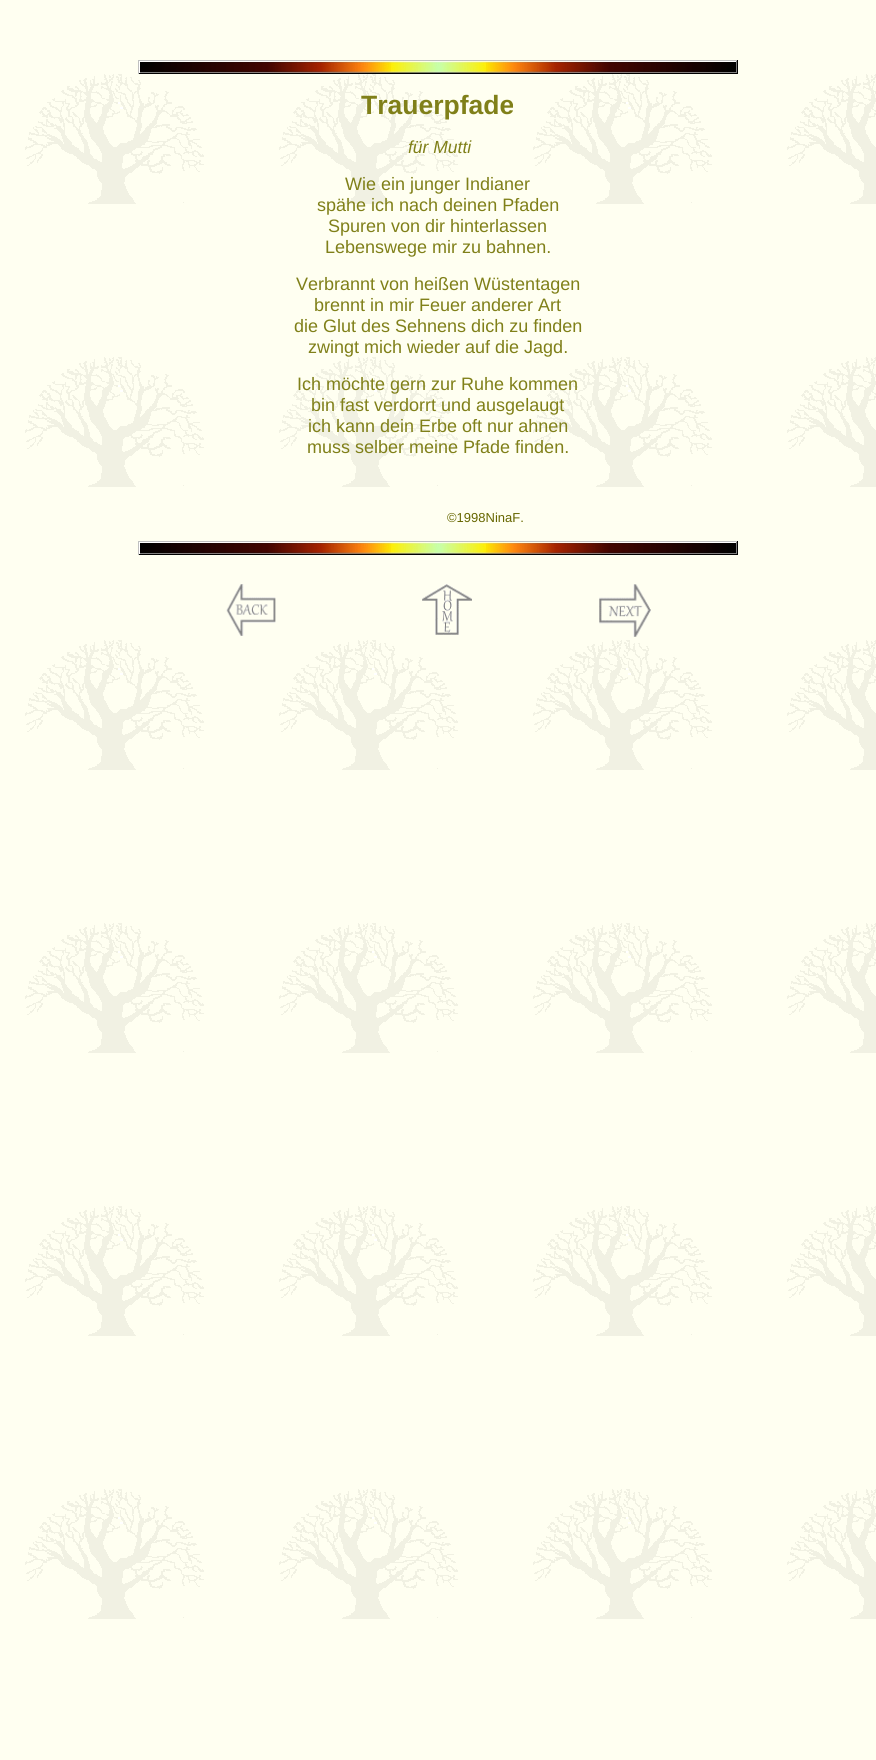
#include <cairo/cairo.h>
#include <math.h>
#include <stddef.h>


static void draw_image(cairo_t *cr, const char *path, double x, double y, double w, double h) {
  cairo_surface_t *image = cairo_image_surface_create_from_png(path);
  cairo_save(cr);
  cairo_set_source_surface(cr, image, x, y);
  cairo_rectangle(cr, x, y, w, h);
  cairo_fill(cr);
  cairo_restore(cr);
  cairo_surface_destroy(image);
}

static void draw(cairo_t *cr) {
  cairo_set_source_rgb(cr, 1, 1, 1);
  cairo_paint(cr);
  draw_image(cr, "images/1.png", 0, 0, 876, 1760);
  draw_image(cr, "images/2.png", 138, 60, 600, 14);
  draw_image(cr, "images/2.png", 138, 541, 600, 14);
  draw_image(cr, "images/3.png", 226, 584, 50, 52);
  draw_image(cr, "images/4.png", 422, 584, 50, 51);
  draw_image(cr, "images/5.png", 599, 584, 52, 53);
  cairo_select_font_face(cr, "Liberation Sans", CAIRO_FONT_SLANT_NORMAL, CAIRO_FONT_WEIGHT_BOLD);
  cairo_set_font_size(cr, 26.5);
  cairo_set_source_rgb(cr, 128 / 255.0, 128 / 255.0, 25 / 255.0);
  cairo_move_to(cr, 361, 114);
  cairo_show_text(cr, "Trauerpfade");
  cairo_select_font_face(cr, "Liberation Sans", CAIRO_FONT_SLANT_ITALIC, CAIRO_FONT_WEIGHT_NORMAL);
  cairo_set_font_size(cr, 17.5);
  cairo_move_to(cr, 408, 153);
  cairo_show_text(cr, "für Mutti");
  cairo_select_font_face(cr, "Liberation Sans", CAIRO_FONT_SLANT_NORMAL, CAIRO_FONT_WEIGHT_NORMAL);
  cairo_set_font_size(cr, 18);
  cairo_move_to(cr, 345, 190);
  cairo_show_text(cr, "Wie ein junger Indianer");
  cairo_move_to(cr, 317, 211);
  cairo_show_text(cr, "spähe ich nach deinen Pfaden");
  cairo_move_to(cr, 328, 232);
  cairo_show_text(cr, "Spuren von dir hinterlassen");
  cairo_move_to(cr, 325, 253);
  cairo_show_text(cr, "Lebenswege mir zu bahnen.");
  cairo_move_to(cr, 296, 290);
  cairo_show_text(cr, "Verbrannt von heißen Wüstentagen");
  cairo_move_to(cr, 314, 311);
  cairo_show_text(cr, "brennt in mir Feuer anderer Art");
  cairo_move_to(cr, 294, 332);
  cairo_show_text(cr, "die Glut des Sehnens dich zu finden");
  cairo_move_to(cr, 308, 353);
  cairo_show_text(cr, "zwingt mich wieder auf die Jagd.");
  cairo_move_to(cr, 297, 390);
  cairo_show_text(cr, "Ich möchte gern zur Ruhe kommen");
  cairo_move_to(cr, 311, 411);
  cairo_show_text(cr, "bin fast verdorrt und ausgelaugt");
  cairo_move_to(cr, 308, 432);
  cairo_show_text(cr, "ich kann dein Erbe oft nur ahnen");
  cairo_move_to(cr, 307, 453);
  cairo_show_text(cr, "muss selber meine Pfade finden.");
  cairo_set_font_size(cr, 13);
  cairo_set_source_rgb(cr, 102 / 255.0, 102 / 255.0, 0);
  cairo_move_to(cr, 447, 522);
  cairo_show_text(cr, "©1998NinaF.");
}

int main(void) {
  cairo_surface_t *surface = cairo_image_surface_create(CAIRO_FORMAT_RGB24, 876, 1760);
  cairo_t *cr = cairo_create(surface);
  cairo_font_options_t *options = cairo_font_options_create();
  cairo_font_options_set_hint_metrics(options, CAIRO_HINT_METRICS_OFF);
  cairo_font_options_set_hint_style(options, CAIRO_HINT_STYLE_NONE);
  cairo_set_font_options(cr, options);
  cairo_set_miter_limit(cr, 4);
  draw(cr);
  cairo_surface_write_to_png(surface, "out.png");
  cairo_font_options_destroy(options);
  cairo_destroy(cr);
  cairo_surface_destroy(surface);
  return 0;
}
